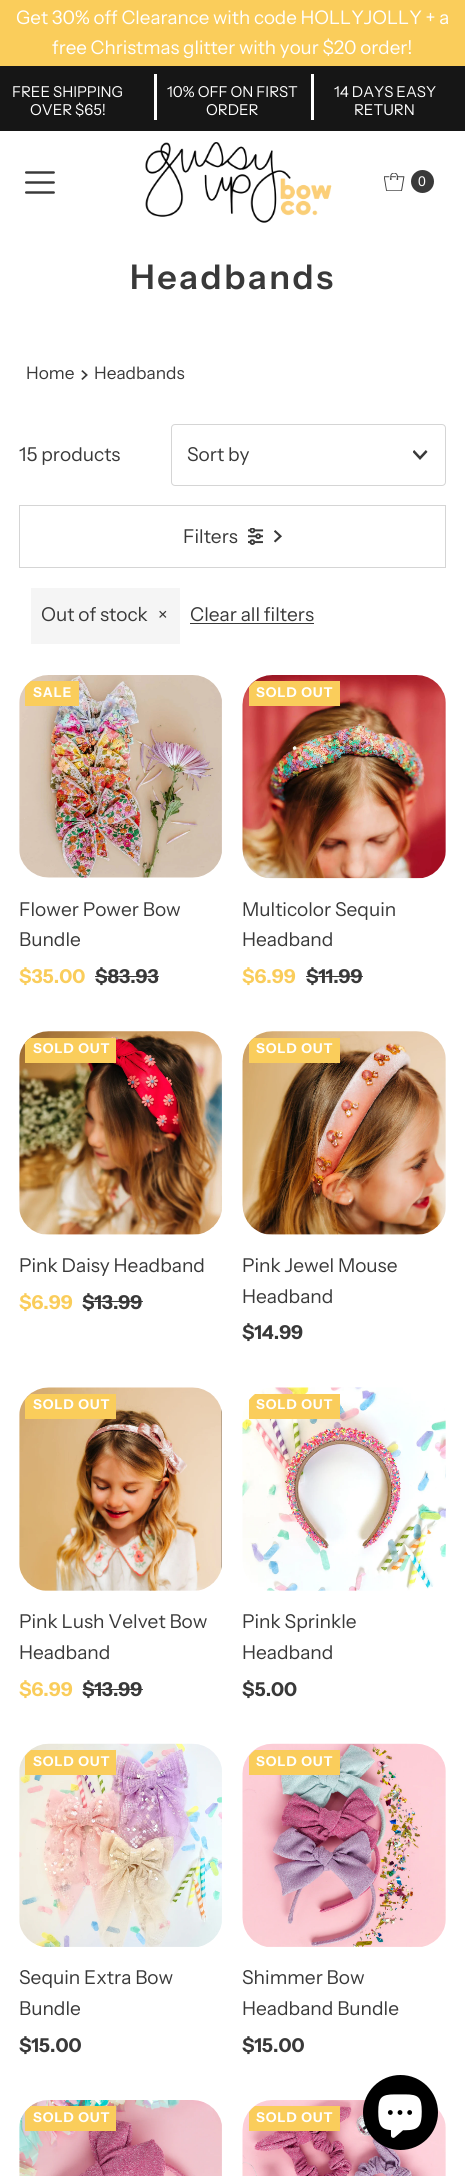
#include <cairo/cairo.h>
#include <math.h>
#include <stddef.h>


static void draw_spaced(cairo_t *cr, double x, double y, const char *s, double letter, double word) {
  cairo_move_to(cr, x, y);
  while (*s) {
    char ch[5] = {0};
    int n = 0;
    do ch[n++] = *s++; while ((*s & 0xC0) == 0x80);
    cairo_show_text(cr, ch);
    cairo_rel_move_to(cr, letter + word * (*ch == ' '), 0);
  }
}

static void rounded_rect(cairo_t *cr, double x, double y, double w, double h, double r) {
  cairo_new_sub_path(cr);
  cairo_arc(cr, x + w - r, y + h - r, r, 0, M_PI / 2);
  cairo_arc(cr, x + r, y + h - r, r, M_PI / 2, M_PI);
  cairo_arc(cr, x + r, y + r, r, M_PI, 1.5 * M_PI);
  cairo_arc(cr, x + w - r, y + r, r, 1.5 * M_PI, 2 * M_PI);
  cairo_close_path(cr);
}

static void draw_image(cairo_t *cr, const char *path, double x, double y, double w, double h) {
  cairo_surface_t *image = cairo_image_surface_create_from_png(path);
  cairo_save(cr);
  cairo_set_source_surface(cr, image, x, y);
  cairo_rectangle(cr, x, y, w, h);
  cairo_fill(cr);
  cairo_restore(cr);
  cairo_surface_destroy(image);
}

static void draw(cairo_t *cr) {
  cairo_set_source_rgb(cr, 1, 1, 1);
  cairo_paint(cr);
  cairo_set_source_rgb(cr, 250 / 255.0, 205 / 255.0, 91 / 255.0);
  cairo_rectangle(cr, 0, 0, 465, 66);
  cairo_fill(cr);
  cairo_set_source_rgb(cr, 22 / 255.0, 22 / 255.0, 22 / 255.0);
  cairo_rectangle(cr, 0, 66, 465, 65);
  cairo_fill(cr);
  cairo_set_source_rgb(cr, 1, 1, 1);
  cairo_rectangle(cr, 154, 74, 3, 46);
  cairo_fill(cr);
  cairo_rectangle(cr, 311, 74, 3, 46);
  cairo_fill(cr);
  draw_image(cr, "images/1.png", 25, 171, 30, 23);
  draw_image(cr, "images/2.png", 145, 142, 187, 81);
  draw_image(cr, "images/3.png", 384, 173, 21, 18);
  cairo_set_source_rgb(cr, 57 / 255.0, 57 / 255.0, 57 / 255.0);
  cairo_arc(cr, 422.5, 181.5, 11.5, 0, 2 * M_PI);
  cairo_fill(cr);
  draw_image(cr, "images/4.png", 81, 370, 7, 10);
  rounded_rect(cr, 171.5, 424.5, 274, 61, 3.5);
  cairo_set_source_rgb(cr, 213 / 255.0, 213 / 255.0, 213 / 255.0);
  cairo_set_line_width(cr, 1);
  cairo_stroke(cr);
  draw_image(cr, "images/5.png", 413, 450, 15, 10);
  cairo_rectangle(cr, 19.5, 505.5, 426, 62);
  cairo_stroke(cr);
  draw_image(cr, "images/6.png", 248, 528, 16, 17);
  draw_image(cr, "images/7.png", 274, 530, 8, 13);
  cairo_set_source_rgb(cr, 245 / 255.0, 245 / 255.0, 245 / 255.0);
  cairo_rectangle(cr, 31, 588, 149, 56);
  cairo_fill(cr);
  cairo_set_source_rgb(cr, 57 / 255.0, 57 / 255.0, 57 / 255.0);
  cairo_rectangle(cr, 190, 623, 124, 1);
  cairo_fill(cr);
  draw_image(cr, "images/8.png", 19, 675, 203, 203);
  cairo_save(cr);
  rounded_rect(cr, 19, 675, 204, 203, 30);
  cairo_clip(cr);
  cairo_set_source_rgb(cr, 250 / 255.0, 205 / 255.0, 91 / 255.0);
  cairo_rectangle(cr, 25, 681, 54, 25);
  cairo_fill(cr);
  cairo_restore(cr);
  cairo_rectangle(cr, 95, 976, 64, 1);
  cairo_fill(cr);
  draw_image(cr, "images/9.png", 242, 675, 204, 204);
  cairo_save(cr);
  rounded_rect(cr, 243, 675, 203, 204, 30);
  cairo_clip(cr);
  cairo_set_source_rgb(cr, 250 / 255.0, 205 / 255.0, 91 / 255.0);
  cairo_rectangle(cr, 249, 681, 91, 25);
  cairo_fill(cr);
  cairo_restore(cr);
  cairo_rectangle(cr, 306, 976, 57, 1);
  cairo_fill(cr);
  draw_image(cr, "images/10.png", 19, 1031, 203, 204);
  cairo_save(cr);
  rounded_rect(cr, 19, 1031, 204, 204, 30);
  cairo_clip(cr);
  cairo_set_source_rgb(cr, 250 / 255.0, 205 / 255.0, 91 / 255.0);
  cairo_rectangle(cr, 25, 1038, 91, 25);
  cairo_fill(cr);
  cairo_restore(cr);
  cairo_rectangle(cr, 83, 1301, 60, 1);
  cairo_fill(cr);
  draw_image(cr, "images/11.png", 242, 1031, 204, 204);
  cairo_save(cr);
  rounded_rect(cr, 243, 1031, 203, 204, 30);
  cairo_clip(cr);
  cairo_set_source_rgb(cr, 250 / 255.0, 205 / 255.0, 91 / 255.0);
  cairo_rectangle(cr, 249, 1038, 91, 25);
  cairo_fill(cr);
  cairo_restore(cr);
  draw_image(cr, "images/12.png", 19, 1387, 203, 204);
  cairo_save(cr);
  rounded_rect(cr, 19, 1388, 204, 203, 30);
  cairo_clip(cr);
  cairo_set_source_rgb(cr, 250 / 255.0, 205 / 255.0, 91 / 255.0);
  cairo_rectangle(cr, 25, 1394, 91, 25);
  cairo_fill(cr);
  cairo_restore(cr);
  cairo_rectangle(cr, 83, 1689, 60, 1);
  cairo_fill(cr);
  draw_image(cr, "images/13.png", 242, 1387, 204, 204);
  cairo_save(cr);
  rounded_rect(cr, 243, 1388, 203, 203, 30);
  cairo_clip(cr);
  cairo_set_source_rgb(cr, 250 / 255.0, 205 / 255.0, 91 / 255.0);
  cairo_rectangle(cr, 249, 1394, 91, 25);
  cairo_fill(cr);
  cairo_restore(cr);
  draw_image(cr, "images/14.png", 19, 1743, 203, 204);
  cairo_save(cr);
  rounded_rect(cr, 19, 1744, 204, 204, 30);
  cairo_clip(cr);
  cairo_set_source_rgb(cr, 250 / 255.0, 205 / 255.0, 91 / 255.0);
  cairo_rectangle(cr, 25, 1750, 91, 25);
  cairo_fill(cr);
  cairo_restore(cr);
  draw_image(cr, "images/15.png", 242, 1743, 204, 204);
  cairo_save(cr);
  rounded_rect(cr, 243, 1744, 203, 204, 30);
  cairo_clip(cr);
  cairo_set_source_rgb(cr, 250 / 255.0, 205 / 255.0, 91 / 255.0);
  cairo_rectangle(cr, 249, 1750, 91, 25);
  cairo_fill(cr);
  cairo_restore(cr);
  draw_image(cr, "images/16.png", 19, 2100, 203, 76);
  cairo_save(cr);
  rounded_rect(cr, 19, 2100, 204, 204, 30);
  cairo_clip(cr);
  cairo_set_source_rgb(cr, 250 / 255.0, 205 / 255.0, 91 / 255.0);
  cairo_rectangle(cr, 25, 2106, 91, 25);
  cairo_fill(cr);
  cairo_restore(cr);
  draw_image(cr, "images/17.png", 242, 2100, 204, 76);
  cairo_save(cr);
  rounded_rect(cr, 243, 2100, 203, 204, 30);
  cairo_clip(cr);
  cairo_set_source_rgb(cr, 250 / 255.0, 205 / 255.0, 91 / 255.0);
  cairo_rectangle(cr, 249, 2106, 91, 25);
  cairo_fill(cr);
  cairo_restore(cr);
  cairo_set_source_rgb(cr, 0, 0, 0);
  cairo_arc(cr, 400.5, 2112.5, 37.5, 0, 2 * M_PI);
  cairo_fill(cr);
  draw_image(cr, "images/18.png", 378, 2094, 44, 44);
  cairo_select_font_face(cr, "Instrument Sans", CAIRO_FONT_SLANT_NORMAL, CAIRO_FONT_WEIGHT_NORMAL);
  cairo_set_font_size(cr, 18.75);
  cairo_set_source_rgb(cr, 1, 1, 1);
  cairo_move_to(cr, 16, 24);
  cairo_show_text(cr, "Get 30% off Clearance with code HOLLYJOLLY + a");
  cairo_move_to(cr, 52, 54);
  cairo_show_text(cr, "free Christmas glitter with your $20 order!");
  cairo_set_font_size(cr, 15);
  cairo_move_to(cr, 12, 97);
  cairo_show_text(cr, "FREE SHIPPING");
  cairo_move_to(cr, 30, 115);
  cairo_show_text(cr, "OVER $65!");
  cairo_move_to(cr, 167, 97);
  cairo_show_text(cr, "10% OFF ON FIRST");
  cairo_move_to(cr, 206, 115);
  cairo_show_text(cr, "ORDER");
  cairo_move_to(cr, 334, 97);
  cairo_show_text(cr, "14 DAYS EASY");
  cairo_move_to(cr, 354, 115);
  cairo_show_text(cr, "RETURN");
  cairo_select_font_face(cr, "Liberation Sans", CAIRO_FONT_SLANT_NORMAL, CAIRO_FONT_WEIGHT_NORMAL);
  cairo_set_font_size(cr, 14);
  cairo_move_to(cr, 418, 186);
  cairo_show_text(cr, "0");
  cairo_select_font_face(cr, "Instrument Sans SemiBold", CAIRO_FONT_SLANT_NORMAL, CAIRO_FONT_WEIGHT_NORMAL);
  cairo_set_font_size(cr, 34);
  cairo_set_source_rgb(cr, 57 / 255.0, 57 / 255.0, 57 / 255.0);
  draw_spaced(cr, 130, 289, "Headbands", 2.5, 0);
  cairo_select_font_face(cr, "Instrument Sans", CAIRO_FONT_SLANT_NORMAL, CAIRO_FONT_WEIGHT_NORMAL);
  cairo_set_font_size(cr, 17.25);
  cairo_move_to(cr, 26, 379);
  cairo_show_text(cr, "Home");
  cairo_move_to(cr, 94, 379);
  cairo_show_text(cr, "Headbands");
  cairo_set_font_size(cr, 19.1);
  cairo_move_to(cr, 19, 461);
  cairo_show_text(cr, "15 products");
  cairo_move_to(cr, 187, 461);
  cairo_show_text(cr, "Sort by");
  cairo_move_to(cr, 183, 543);
  cairo_show_text(cr, "Filters");
  cairo_move_to(cr, 41, 621);
  cairo_show_text(cr, "Out of stock");
  cairo_set_font_size(cr, 18);
  cairo_move_to(cr, 158, 621);
  cairo_show_text(cr, "×");
  cairo_set_font_size(cr, 19.1);
  cairo_move_to(cr, 190, 621);
  cairo_show_text(cr, "Clear all filters");
  cairo_select_font_face(cr, "Instrument Sans", CAIRO_FONT_SLANT_NORMAL, CAIRO_FONT_WEIGHT_BOLD);
  cairo_set_font_size(cr, 13.5);
  cairo_set_source_rgb(cr, 1, 1, 1);
  draw_spaced(cr, 33, 697, "SALE", 1, 0);
  cairo_select_font_face(cr, "Instrument Sans", CAIRO_FONT_SLANT_NORMAL, CAIRO_FONT_WEIGHT_NORMAL);
  cairo_set_font_size(cr, 19.1);
  cairo_set_source_rgb(cr, 57 / 255.0, 57 / 255.0, 57 / 255.0);
  cairo_move_to(cr, 19, 916);
  cairo_show_text(cr, "Flower Power Bow");
  cairo_move_to(cr, 19, 946);
  cairo_show_text(cr, "Bundle");
  cairo_select_font_face(cr, "Instrument Sans", CAIRO_FONT_SLANT_NORMAL, CAIRO_FONT_WEIGHT_BOLD);
  cairo_set_source_rgb(cr, 250 / 255.0, 205 / 255.0, 91 / 255.0);
  cairo_move_to(cr, 19, 983);
  cairo_show_text(cr, "$35.00");
  cairo_set_source_rgb(cr, 57 / 255.0, 57 / 255.0, 57 / 255.0);
  cairo_move_to(cr, 95, 983);
  cairo_show_text(cr, "$83.93");
  cairo_set_font_size(cr, 13.5);
  cairo_set_source_rgb(cr, 1, 1, 1);
  draw_spaced(cr, 256, 697, "SOLD OUT", 1, 0);
  cairo_select_font_face(cr, "Instrument Sans", CAIRO_FONT_SLANT_NORMAL, CAIRO_FONT_WEIGHT_NORMAL);
  cairo_set_font_size(cr, 19.1);
  cairo_set_source_rgb(cr, 57 / 255.0, 57 / 255.0, 57 / 255.0);
  cairo_move_to(cr, 242, 916);
  cairo_show_text(cr, "Multicolor Sequin");
  cairo_move_to(cr, 242, 946);
  cairo_show_text(cr, "Headband");
  cairo_select_font_face(cr, "Instrument Sans", CAIRO_FONT_SLANT_NORMAL, CAIRO_FONT_WEIGHT_BOLD);
  cairo_set_source_rgb(cr, 250 / 255.0, 205 / 255.0, 91 / 255.0);
  cairo_move_to(cr, 242, 983);
  cairo_show_text(cr, "$6.99");
  cairo_set_source_rgb(cr, 57 / 255.0, 57 / 255.0, 57 / 255.0);
  cairo_move_to(cr, 306, 983);
  cairo_show_text(cr, "$11.99");
  cairo_set_font_size(cr, 13.5);
  cairo_set_source_rgb(cr, 1, 1, 1);
  draw_spaced(cr, 33, 1053, "SOLD OUT", 1, 0);
  cairo_select_font_face(cr, "Instrument Sans", CAIRO_FONT_SLANT_NORMAL, CAIRO_FONT_WEIGHT_NORMAL);
  cairo_set_font_size(cr, 19.1);
  cairo_set_source_rgb(cr, 57 / 255.0, 57 / 255.0, 57 / 255.0);
  cairo_move_to(cr, 19, 1272);
  cairo_show_text(cr, "Pink Daisy Headband");
  cairo_select_font_face(cr, "Instrument Sans", CAIRO_FONT_SLANT_NORMAL, CAIRO_FONT_WEIGHT_BOLD);
  cairo_set_source_rgb(cr, 250 / 255.0, 205 / 255.0, 91 / 255.0);
  cairo_move_to(cr, 19, 1309);
  cairo_show_text(cr, "$6.99");
  cairo_set_source_rgb(cr, 57 / 255.0, 57 / 255.0, 57 / 255.0);
  cairo_move_to(cr, 82, 1309);
  cairo_show_text(cr, "$13.99");
  cairo_set_font_size(cr, 13.5);
  cairo_set_source_rgb(cr, 1, 1, 1);
  draw_spaced(cr, 256, 1053, "SOLD OUT", 1, 0);
  cairo_select_font_face(cr, "Instrument Sans", CAIRO_FONT_SLANT_NORMAL, CAIRO_FONT_WEIGHT_NORMAL);
  cairo_set_font_size(cr, 19.1);
  cairo_set_source_rgb(cr, 57 / 255.0, 57 / 255.0, 57 / 255.0);
  cairo_move_to(cr, 242, 1272);
  cairo_show_text(cr, "Pink Jewel Mouse");
  cairo_move_to(cr, 242, 1303);
  cairo_show_text(cr, "Headband");
  cairo_select_font_face(cr, "Instrument Sans", CAIRO_FONT_SLANT_NORMAL, CAIRO_FONT_WEIGHT_BOLD);
  cairo_move_to(cr, 242, 1339);
  cairo_show_text(cr, "$14.99");
  cairo_set_font_size(cr, 13.5);
  cairo_set_source_rgb(cr, 1, 1, 1);
  draw_spaced(cr, 33, 1409, "SOLD OUT", 1, 0);
  cairo_select_font_face(cr, "Instrument Sans", CAIRO_FONT_SLANT_NORMAL, CAIRO_FONT_WEIGHT_NORMAL);
  cairo_set_font_size(cr, 19.1);
  cairo_set_source_rgb(cr, 57 / 255.0, 57 / 255.0, 57 / 255.0);
  cairo_move_to(cr, 19, 1628);
  cairo_show_text(cr, "Pink Lush Velvet Bow");
  cairo_move_to(cr, 19, 1659);
  cairo_show_text(cr, "Headband");
  cairo_select_font_face(cr, "Instrument Sans", CAIRO_FONT_SLANT_NORMAL, CAIRO_FONT_WEIGHT_BOLD);
  cairo_set_source_rgb(cr, 250 / 255.0, 205 / 255.0, 91 / 255.0);
  cairo_move_to(cr, 19, 1696);
  cairo_show_text(cr, "$6.99");
  cairo_set_source_rgb(cr, 57 / 255.0, 57 / 255.0, 57 / 255.0);
  cairo_move_to(cr, 82, 1696);
  cairo_show_text(cr, "$13.99");
  cairo_set_font_size(cr, 13.5);
  cairo_set_source_rgb(cr, 1, 1, 1);
  draw_spaced(cr, 256, 1409, "SOLD OUT", 1, 0);
  cairo_select_font_face(cr, "Instrument Sans", CAIRO_FONT_SLANT_NORMAL, CAIRO_FONT_WEIGHT_NORMAL);
  cairo_set_font_size(cr, 19.1);
  cairo_set_source_rgb(cr, 57 / 255.0, 57 / 255.0, 57 / 255.0);
  cairo_move_to(cr, 242, 1628);
  cairo_show_text(cr, "Pink Sprinkle");
  cairo_move_to(cr, 242, 1659);
  cairo_show_text(cr, "Headband");
  cairo_select_font_face(cr, "Instrument Sans", CAIRO_FONT_SLANT_NORMAL, CAIRO_FONT_WEIGHT_BOLD);
  cairo_move_to(cr, 242, 1696);
  cairo_show_text(cr, "$5.00");
  cairo_set_font_size(cr, 13.5);
  cairo_set_source_rgb(cr, 1, 1, 1);
  draw_spaced(cr, 33, 1766, "SOLD OUT", 1, 0);
  cairo_select_font_face(cr, "Instrument Sans", CAIRO_FONT_SLANT_NORMAL, CAIRO_FONT_WEIGHT_NORMAL);
  cairo_set_font_size(cr, 19.1);
  cairo_set_source_rgb(cr, 57 / 255.0, 57 / 255.0, 57 / 255.0);
  cairo_move_to(cr, 19, 1984);
  cairo_show_text(cr, "Sequin Extra Bow");
  cairo_move_to(cr, 19, 2015);
  cairo_show_text(cr, "Bundle");
  cairo_select_font_face(cr, "Instrument Sans", CAIRO_FONT_SLANT_NORMAL, CAIRO_FONT_WEIGHT_BOLD);
  cairo_move_to(cr, 19, 2052);
  cairo_show_text(cr, "$15.00");
  cairo_set_font_size(cr, 13.5);
  cairo_set_source_rgb(cr, 1, 1, 1);
  draw_spaced(cr, 256, 1766, "SOLD OUT", 1, 0);
  cairo_select_font_face(cr, "Instrument Sans", CAIRO_FONT_SLANT_NORMAL, CAIRO_FONT_WEIGHT_NORMAL);
  cairo_set_font_size(cr, 19.1);
  cairo_set_source_rgb(cr, 57 / 255.0, 57 / 255.0, 57 / 255.0);
  cairo_move_to(cr, 242, 1984);
  cairo_show_text(cr, "Shimmer Bow");
  cairo_move_to(cr, 242, 2015);
  cairo_show_text(cr, "Headband Bundle");
  cairo_select_font_face(cr, "Instrument Sans", CAIRO_FONT_SLANT_NORMAL, CAIRO_FONT_WEIGHT_BOLD);
  cairo_move_to(cr, 242, 2052);
  cairo_show_text(cr, "$15.00");
  cairo_set_font_size(cr, 13.5);
  cairo_set_source_rgb(cr, 1, 1, 1);
  draw_spaced(cr, 33, 2122, "SOLD OUT", 1, 0);
  draw_spaced(cr, 256, 2122, "SOLD OUT", 1, 0);
}

int main(void) {
  cairo_surface_t *surface = cairo_image_surface_create(CAIRO_FORMAT_RGB24, 465, 2176);
  cairo_t *cr = cairo_create(surface);
  cairo_font_options_t *options = cairo_font_options_create();
  cairo_font_options_set_hint_metrics(options, CAIRO_HINT_METRICS_OFF);
  cairo_font_options_set_hint_style(options, CAIRO_HINT_STYLE_NONE);
  cairo_set_font_options(cr, options);
  cairo_set_miter_limit(cr, 4);
  draw(cr);
  cairo_surface_write_to_png(surface, "out.png");
  cairo_font_options_destroy(options);
  cairo_destroy(cr);
  cairo_surface_destroy(surface);
  return 0;
}
